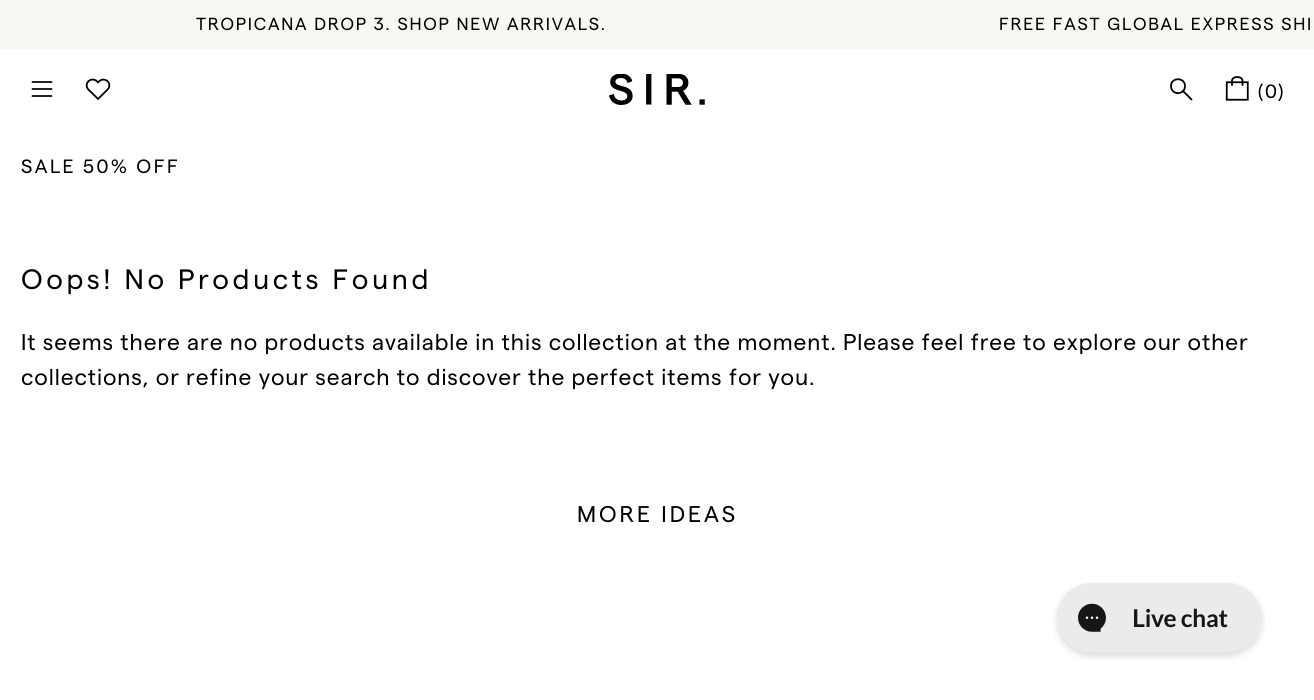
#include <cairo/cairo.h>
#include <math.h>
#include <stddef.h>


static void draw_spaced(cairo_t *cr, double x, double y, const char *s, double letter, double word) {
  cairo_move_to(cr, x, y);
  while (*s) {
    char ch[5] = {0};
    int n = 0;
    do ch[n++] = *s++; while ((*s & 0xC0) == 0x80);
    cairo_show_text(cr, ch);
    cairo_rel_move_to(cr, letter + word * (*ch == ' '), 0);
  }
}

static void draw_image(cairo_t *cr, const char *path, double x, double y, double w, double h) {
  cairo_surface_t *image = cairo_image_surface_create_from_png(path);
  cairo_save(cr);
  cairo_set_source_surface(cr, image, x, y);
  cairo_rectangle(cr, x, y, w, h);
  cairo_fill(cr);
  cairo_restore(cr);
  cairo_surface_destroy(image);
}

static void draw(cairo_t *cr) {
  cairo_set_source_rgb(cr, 1, 1, 1);
  cairo_paint(cr);
  cairo_set_source_rgb(cr, 247 / 255.0, 247 / 255.0, 243 / 255.0);
  cairo_rectangle(cr, 0, 0, 1314, 49);
  cairo_fill(cr);
  cairo_new_path(cr);
  cairo_move_to(cr, 32.5, 89);
  cairo_line_to(cr, 51.5, 89);
  cairo_move_to(cr, 32.5, 82);
  cairo_line_to(cr, 51.5, 82);
  cairo_move_to(cr, 32.5, 96);
  cairo_line_to(cr, 51.5, 96);
  cairo_set_source_rgb(cr, 0, 0, 0);
  cairo_set_line_width(cr, 1.8);
  cairo_set_line_cap(cr, CAIRO_LINE_CAP_ROUND);
  cairo_set_line_join(cr, CAIRO_LINE_JOIN_ROUND);
  cairo_stroke(cr);
  draw_image(cr, "images/1.png", 85, 78, 26, 23);
  draw_image(cr, "images/2.png", 609, 74, 96, 31);
  cairo_new_path(cr);
  cairo_move_to(cr, 1185, 86);
  cairo_curve_to(cr, 1185, 95.5, 1171, 95.5, 1171, 86);
  cairo_curve_to(cr, 1171, 77, 1185, 77, 1185, 86);
  cairo_close_path(cr);
  cairo_set_line_cap(cr, CAIRO_LINE_CAP_BUTT);
  cairo_stroke(cr);
  cairo_new_path(cr);
  cairo_move_to(cr, 1183, 91);
  cairo_line_to(cr, 1191.5, 99.5);
  cairo_set_line_cap(cr, CAIRO_LINE_CAP_ROUND);
  cairo_stroke(cr);
  draw_image(cr, "images/3.png", 1225, 76, 24, 25);
  draw_image(cr, "images/4.png", 1053, 582, 212, 78);
  cairo_select_font_face(cr, "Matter", CAIRO_FONT_SLANT_NORMAL, CAIRO_FONT_WEIGHT_NORMAL);
  cairo_set_font_size(cr, 17.5);
  draw_spaced(cr, 196, 30, "TROPICANA DROP 3. SHOP NEW ARRIVALS.", 1.75, 0);
  draw_spaced(cr, 999, 30, "FREE FAST GLOBAL EXPRESS SHI", 1.75, 0);
  cairo_set_font_size(cr, 19.25);
  draw_spaced(cr, 1258, 98, "(", 2.5, 0);
  draw_spaced(cr, 1265, 98, "0", 2.5, 0);
  draw_spaced(cr, 1278, 98, ")", 2.5, 0);
  draw_spaced(cr, 21, 173, "SALE 50% OFF", 2.5, 0);
  cairo_set_font_size(cr, 28);
  draw_spaced(cr, 21, 289, "Oops! No Products Found", 3.6, 0);
  cairo_set_font_size(cr, 22.75);
  draw_spaced(cr, 21, 350, "It seems there are no products available in this collection at the moment. Please feel free to explore our other", 0.88, 0);
  draw_spaced(cr, 21, 385, "collections, or refine your search to discover the perfect items for you.", 0.88, 0);
  draw_spaced(cr, 577, 522, "MORE IDEAS", 3, 0);
}

int main(void) {
  cairo_surface_t *surface = cairo_image_surface_create(CAIRO_FORMAT_RGB24, 1314, 700);
  cairo_t *cr = cairo_create(surface);
  cairo_font_options_t *options = cairo_font_options_create();
  cairo_font_options_set_hint_metrics(options, CAIRO_HINT_METRICS_OFF);
  cairo_font_options_set_hint_style(options, CAIRO_HINT_STYLE_NONE);
  cairo_set_font_options(cr, options);
  cairo_set_miter_limit(cr, 4);
  draw(cr);
  cairo_surface_write_to_png(surface, "out.png");
  cairo_font_options_destroy(options);
  cairo_destroy(cr);
  cairo_surface_destroy(surface);
  return 0;
}
